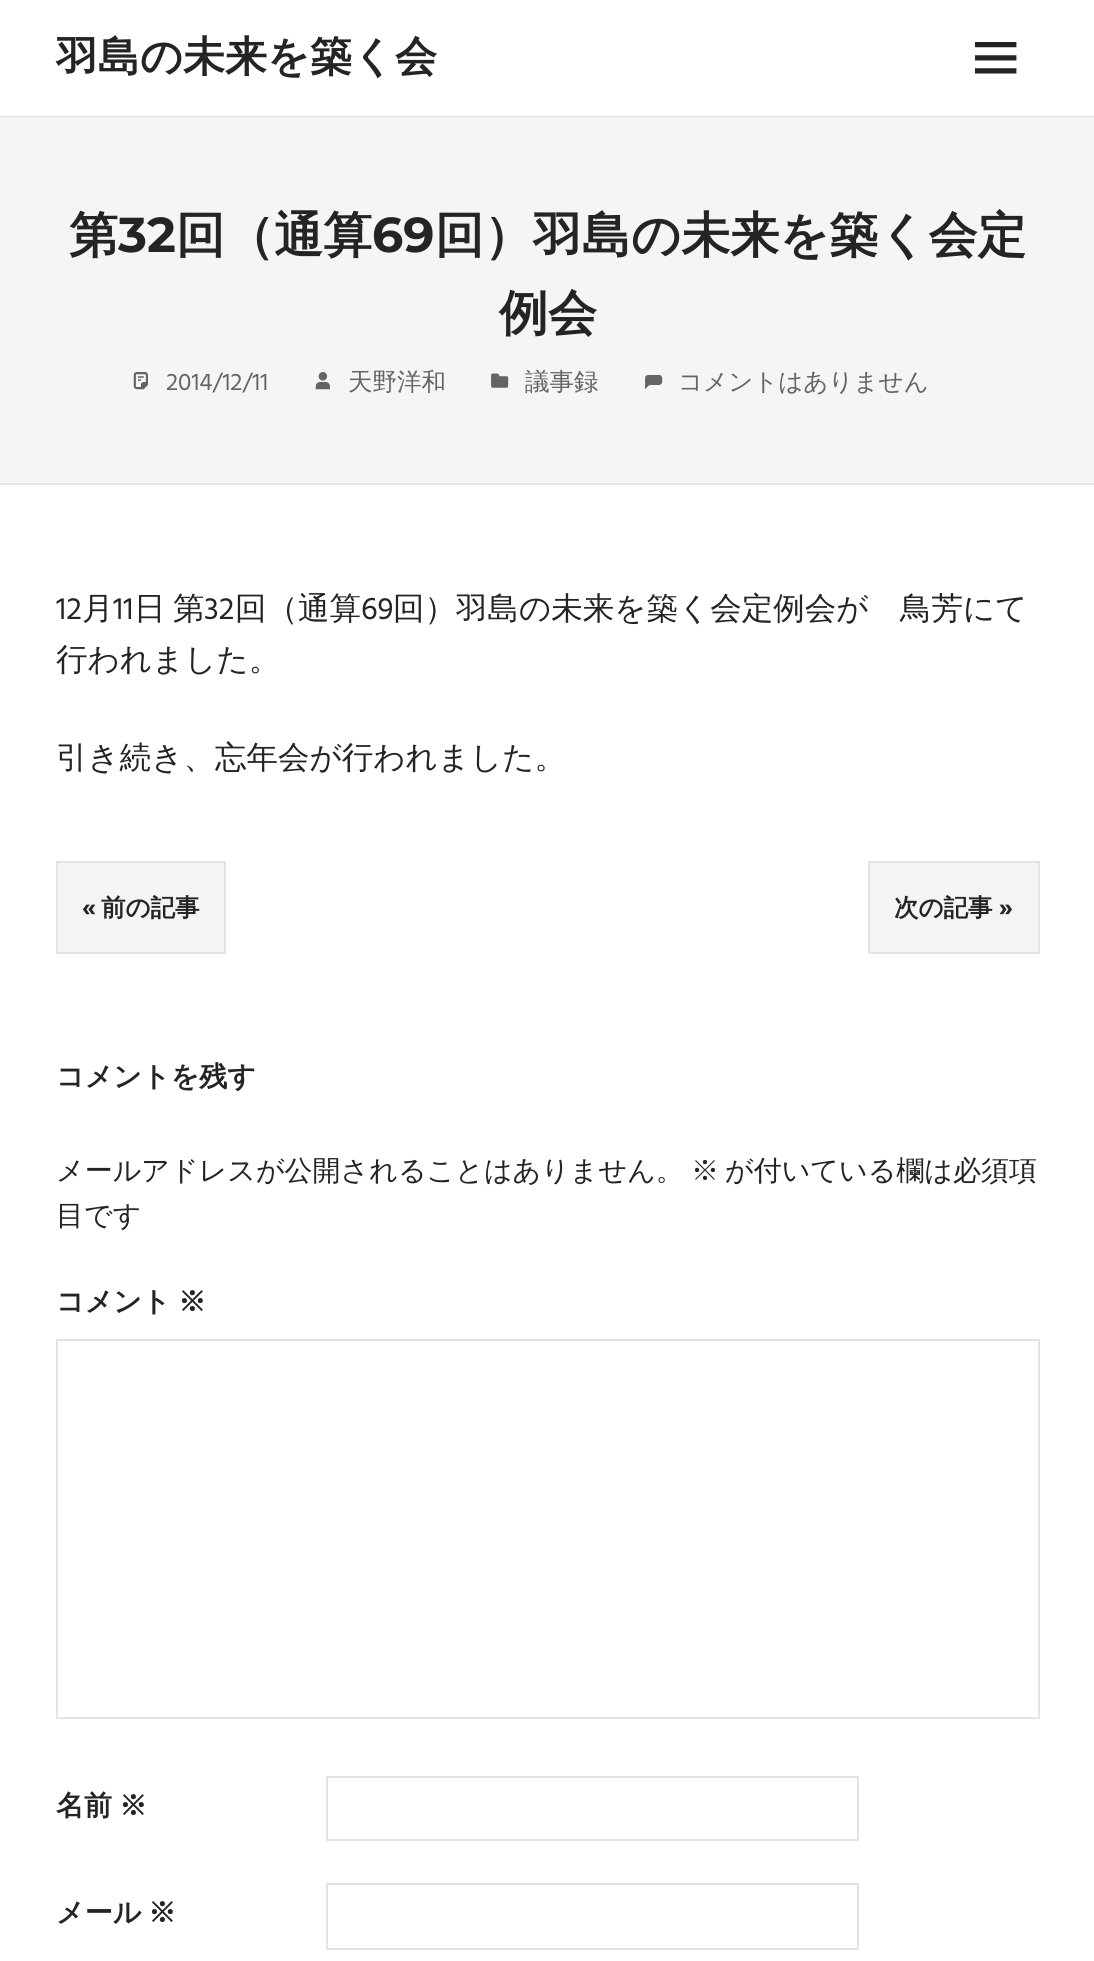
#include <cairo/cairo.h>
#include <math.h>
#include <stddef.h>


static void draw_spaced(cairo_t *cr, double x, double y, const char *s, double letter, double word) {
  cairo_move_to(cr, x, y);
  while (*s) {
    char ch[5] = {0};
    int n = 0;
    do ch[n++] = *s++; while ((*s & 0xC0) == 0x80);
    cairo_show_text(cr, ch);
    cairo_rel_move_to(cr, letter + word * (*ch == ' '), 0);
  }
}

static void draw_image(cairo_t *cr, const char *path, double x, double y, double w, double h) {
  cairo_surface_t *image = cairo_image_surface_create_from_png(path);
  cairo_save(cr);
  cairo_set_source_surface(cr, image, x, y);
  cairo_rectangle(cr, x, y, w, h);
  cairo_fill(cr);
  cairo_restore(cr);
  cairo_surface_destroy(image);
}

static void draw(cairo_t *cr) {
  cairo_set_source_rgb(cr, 1, 1, 1);
  cairo_paint(cr);
  cairo_set_source_rgb(cr, 228 / 255.0, 228 / 255.0, 228 / 255.0);
  cairo_rectangle(cr, 0, 116, 1094, 1);
  cairo_fill(cr);
  draw_image(cr, "images/1.png", 975, 42, 42, 32);
  cairo_set_source_rgb(cr, 245 / 255.0, 245 / 255.0, 245 / 255.0);
  cairo_rectangle(cr, 0, 117, 1094, 366);
  cairo_fill(cr);
  cairo_set_source_rgb(cr, 229 / 255.0, 229 / 255.0, 229 / 255.0);
  cairo_rectangle(cr, 0, 483, 1094, 2);
  cairo_fill(cr);
  draw_image(cr, "images/2.png", 133, 372, 15, 18);
  draw_image(cr, "images/3.png", 315, 372, 15, 18);
  draw_image(cr, "images/4.png", 491, 373, 18, 15);
  draw_image(cr, "images/5.png", 645, 375, 18, 14);
  cairo_set_source_rgb(cr, 244 / 255.0, 244 / 255.0, 244 / 255.0);
  cairo_rectangle(cr, 57, 862, 168, 91);
  cairo_fill_preserve(cr);
  cairo_set_source_rgb(cr, 228 / 255.0, 228 / 255.0, 228 / 255.0);
  cairo_stroke(cr);
  cairo_set_source_rgb(cr, 244 / 255.0, 244 / 255.0, 244 / 255.0);
  cairo_rectangle(cr, 869, 862, 170, 91);
  cairo_fill_preserve(cr);
  cairo_set_source_rgb(cr, 228 / 255.0, 228 / 255.0, 228 / 255.0);
  cairo_stroke(cr);
  cairo_rectangle(cr, 57, 1340, 982, 378);
  cairo_stroke(cr);
  cairo_rectangle(cr, 327, 1777, 531, 63);
  cairo_stroke(cr);
  cairo_rectangle(cr, 327, 1884, 531, 65);
  cairo_stroke(cr);
  cairo_select_font_face(cr, "WenQuanYi Zen Hei", CAIRO_FONT_SLANT_NORMAL, CAIRO_FONT_WEIGHT_BOLD);
  cairo_set_font_size(cr, 42);
  cairo_set_source_rgb(cr, 36 / 255.0, 36 / 255.0, 36 / 255.0);
  cairo_move_to(cr, 56, 71);
  cairo_show_text(cr, "羽島の未来を築く会");
  cairo_set_font_size(cr, 49);
  cairo_move_to(cr, 69, 252);
  cairo_show_text(cr, "第");
  cairo_select_font_face(cr, "Montserrat", CAIRO_FONT_SLANT_NORMAL, CAIRO_FONT_WEIGHT_BOLD);
  cairo_move_to(cr, 118, 252);
  cairo_show_text(cr, "32");
  cairo_select_font_face(cr, "WenQuanYi Zen Hei", CAIRO_FONT_SLANT_NORMAL, CAIRO_FONT_WEIGHT_BOLD);
  cairo_move_to(cr, 176, 252);
  cairo_show_text(cr, "回（通算");
  cairo_select_font_face(cr, "Montserrat", CAIRO_FONT_SLANT_NORMAL, CAIRO_FONT_WEIGHT_BOLD);
  cairo_move_to(cr, 372, 252);
  cairo_show_text(cr, "69");
  cairo_select_font_face(cr, "WenQuanYi Zen Hei", CAIRO_FONT_SLANT_NORMAL, CAIRO_FONT_WEIGHT_BOLD);
  cairo_move_to(cr, 435, 252);
  cairo_show_text(cr, "回）羽島の未来を築く会定");
  cairo_move_to(cr, 499, 330);
  cairo_show_text(cr, "例会");
  cairo_select_font_face(cr, "Hind", CAIRO_FONT_SLANT_NORMAL, CAIRO_FONT_WEIGHT_NORMAL);
  cairo_set_font_size(cr, 24.5);
  cairo_set_source_rgb(cr, 100 / 255.0, 100 / 255.0, 100 / 255.0);
  cairo_move_to(cr, 166, 390);
  cairo_show_text(cr, "2014/12/11");
  cairo_select_font_face(cr, "WenQuanYi Zen Hei Medium", CAIRO_FONT_SLANT_NORMAL, CAIRO_FONT_WEIGHT_NORMAL);
  cairo_move_to(cr, 348, 390);
  cairo_show_text(cr, "天野洋和");
  cairo_move_to(cr, 525, 390);
  cairo_show_text(cr, "議事録");
  cairo_move_to(cr, 678, 390);
  cairo_show_text(cr, "コメントはありません");
  cairo_select_font_face(cr, "Hind", CAIRO_FONT_SLANT_NORMAL, CAIRO_FONT_WEIGHT_NORMAL);
  cairo_set_font_size(cr, 31.5);
  cairo_set_source_rgb(cr, 36 / 255.0, 36 / 255.0, 36 / 255.0);
  cairo_move_to(cr, 56, 619);
  cairo_show_text(cr, "12");
  cairo_select_font_face(cr, "WenQuanYi Zen Hei Medium", CAIRO_FONT_SLANT_NORMAL, CAIRO_FONT_WEIGHT_NORMAL);
  cairo_move_to(cr, 82, 619);
  cairo_show_text(cr, "月");
  cairo_select_font_face(cr, "Hind", CAIRO_FONT_SLANT_NORMAL, CAIRO_FONT_WEIGHT_NORMAL);
  cairo_move_to(cr, 113, 619);
  cairo_show_text(cr, "11");
  cairo_select_font_face(cr, "WenQuanYi Zen Hei Medium", CAIRO_FONT_SLANT_NORMAL, CAIRO_FONT_WEIGHT_NORMAL);
  draw_spaced(cr, 134, 619, "日 第", 0, -2);
  cairo_select_font_face(cr, "Hind", CAIRO_FONT_SLANT_NORMAL, CAIRO_FONT_WEIGHT_NORMAL);
  cairo_move_to(cr, 204, 619);
  cairo_show_text(cr, "32");
  cairo_select_font_face(cr, "WenQuanYi Zen Hei Medium", CAIRO_FONT_SLANT_NORMAL, CAIRO_FONT_WEIGHT_NORMAL);
  cairo_move_to(cr, 235, 619);
  cairo_show_text(cr, "回（通算");
  cairo_select_font_face(cr, "Hind", CAIRO_FONT_SLANT_NORMAL, CAIRO_FONT_WEIGHT_NORMAL);
  cairo_move_to(cr, 361, 619);
  cairo_show_text(cr, "69");
  cairo_select_font_face(cr, "WenQuanYi Zen Hei Medium", CAIRO_FONT_SLANT_NORMAL, CAIRO_FONT_WEIGHT_NORMAL);
  cairo_move_to(cr, 393, 619);
  cairo_show_text(cr, "回）羽島の未来を築く会定例会が　鳥芳にて");
  cairo_move_to(cr, 56, 670);
  cairo_show_text(cr, "行われました。");
  cairo_move_to(cr, 56, 768);
  cairo_show_text(cr, "引き続き、忘年会が行われました。");
  cairo_select_font_face(cr, "Montserrat", CAIRO_FONT_SLANT_NORMAL, CAIRO_FONT_WEIGHT_BOLD);
  cairo_set_font_size(cr, 24.5);
  cairo_move_to(cr, 82, 916);
  cairo_show_text(cr, "«");
  cairo_select_font_face(cr, "WenQuanYi Zen Hei", CAIRO_FONT_SLANT_NORMAL, CAIRO_FONT_WEIGHT_BOLD);
  cairo_move_to(cr, 101, 916);
  cairo_show_text(cr, "前の記事");
  cairo_move_to(cr, 894, 916);
  cairo_show_text(cr, "次の記事");
  cairo_select_font_face(cr, "Montserrat", CAIRO_FONT_SLANT_NORMAL, CAIRO_FONT_WEIGHT_BOLD);
  cairo_move_to(cr, 999, 916);
  cairo_show_text(cr, "»");
  cairo_select_font_face(cr, "WenQuanYi Zen Hei", CAIRO_FONT_SLANT_NORMAL, CAIRO_FONT_WEIGHT_BOLD);
  cairo_set_font_size(cr, 28);
  cairo_move_to(cr, 56, 1086);
  cairo_show_text(cr, "コメントを残す");
  cairo_select_font_face(cr, "WenQuanYi Zen Hei Medium", CAIRO_FONT_SLANT_NORMAL, CAIRO_FONT_WEIGHT_NORMAL);
  cairo_move_to(cr, 56, 1180);
  cairo_show_text(cr, "メールアドレスが公開されることはありません。");
  cairo_move_to(cr, 691, 1180);
  cairo_show_text(cr, "※");
  cairo_move_to(cr, 725, 1180);
  cairo_show_text(cr, "が付いている欄は必須項");
  cairo_move_to(cr, 56, 1225);
  cairo_show_text(cr, "目です");
  cairo_select_font_face(cr, "WenQuanYi Zen Hei", CAIRO_FONT_SLANT_NORMAL, CAIRO_FONT_WEIGHT_BOLD);
  cairo_move_to(cr, 56, 1311);
  cairo_show_text(cr, "コメント");
  cairo_move_to(cr, 178, 1311);
  cairo_show_text(cr, "※");
  cairo_move_to(cr, 56, 1815);
  cairo_show_text(cr, "名前");
  cairo_move_to(cr, 119, 1815);
  cairo_show_text(cr, "※");
  cairo_move_to(cr, 56, 1922);
  cairo_show_text(cr, "メール");
  cairo_move_to(cr, 148, 1922);
  cairo_show_text(cr, "※");
}

int main(void) {
  cairo_surface_t *surface = cairo_image_surface_create(CAIRO_FORMAT_RGB24, 1094, 1961);
  cairo_t *cr = cairo_create(surface);
  cairo_font_options_t *options = cairo_font_options_create();
  cairo_font_options_set_hint_metrics(options, CAIRO_HINT_METRICS_OFF);
  cairo_font_options_set_hint_style(options, CAIRO_HINT_STYLE_NONE);
  cairo_set_font_options(cr, options);
  cairo_set_miter_limit(cr, 4);
  draw(cr);
  cairo_surface_write_to_png(surface, "out.png");
  cairo_font_options_destroy(options);
  cairo_destroy(cr);
  cairo_surface_destroy(surface);
  return 0;
}
